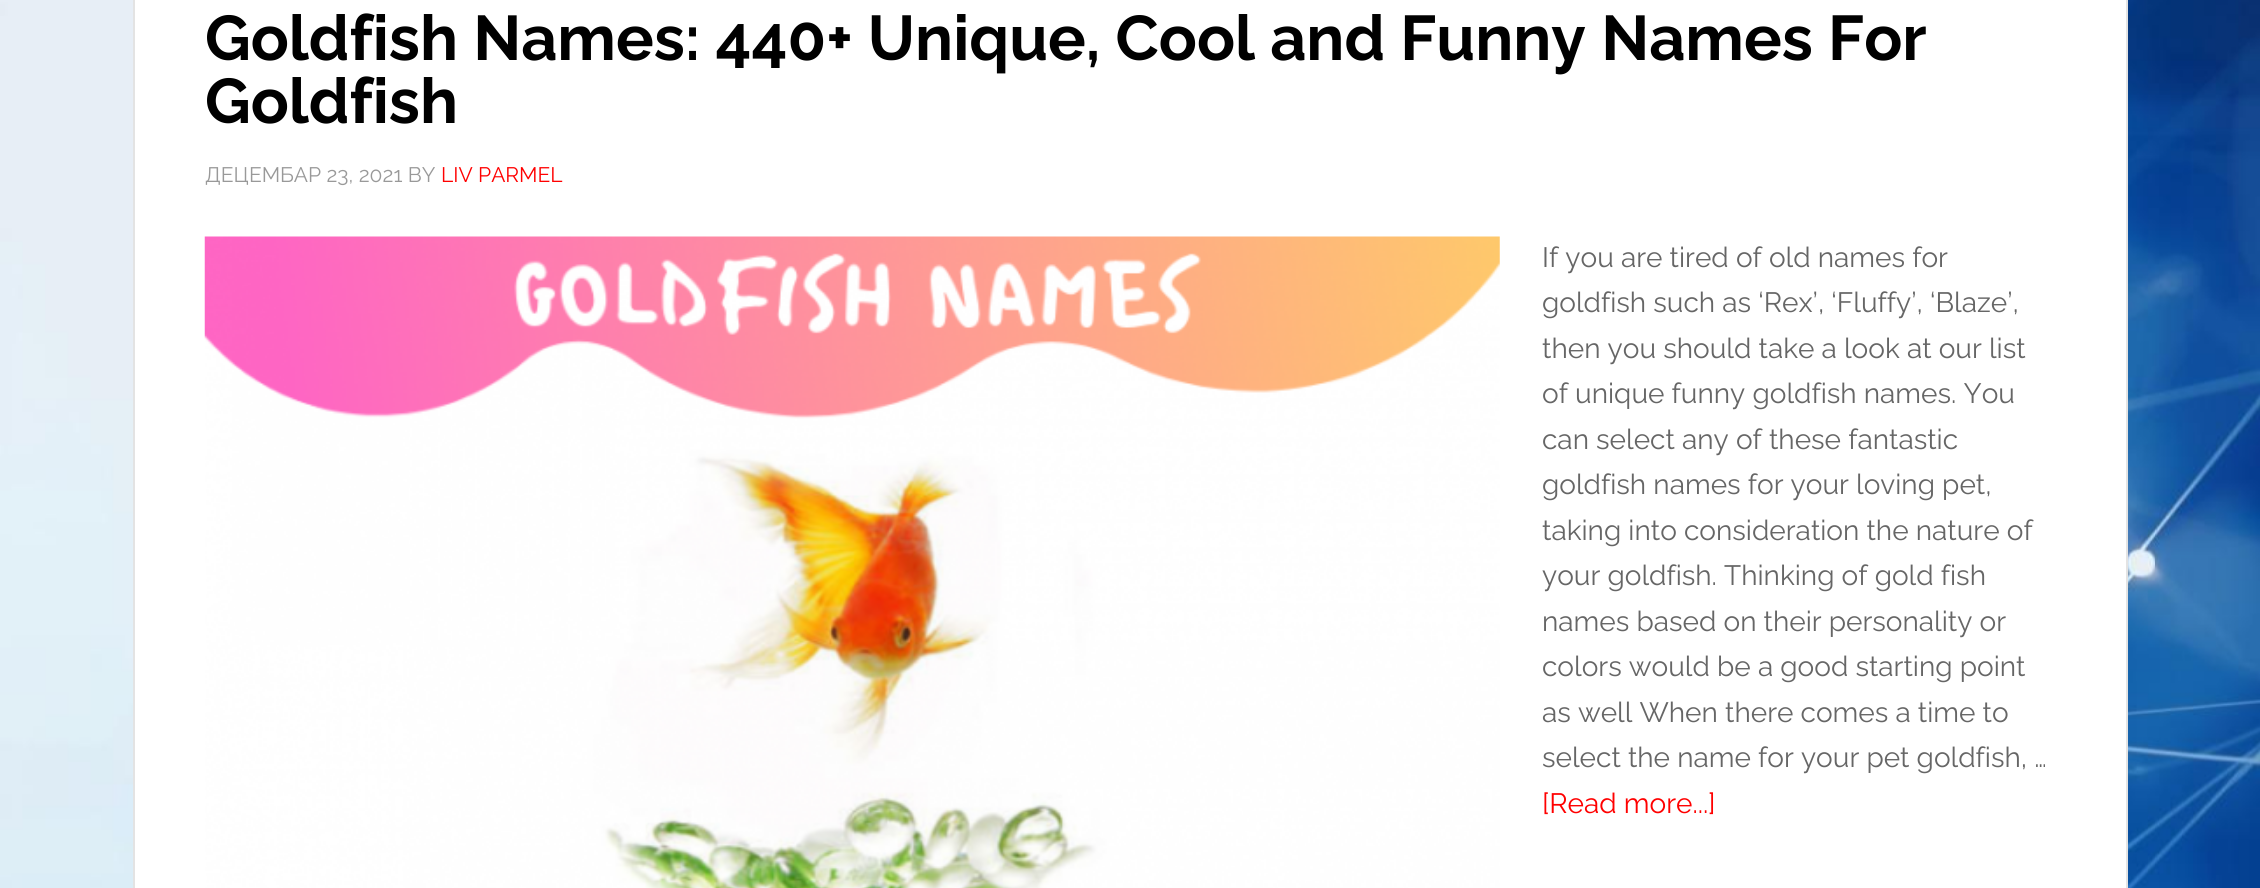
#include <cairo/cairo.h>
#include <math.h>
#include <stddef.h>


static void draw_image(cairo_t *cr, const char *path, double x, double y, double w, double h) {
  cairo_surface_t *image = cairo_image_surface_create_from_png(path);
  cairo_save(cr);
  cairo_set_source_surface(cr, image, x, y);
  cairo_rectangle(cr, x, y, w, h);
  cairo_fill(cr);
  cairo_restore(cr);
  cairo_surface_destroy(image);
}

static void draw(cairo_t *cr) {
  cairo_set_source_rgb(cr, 1, 1, 1);
  cairo_paint(cr);
  draw_image(cr, "images/1.png", 0, 0, 2260, 888);
  cairo_set_source_rgb(cr, 1, 1, 1);
  cairo_rectangle(cr, 134, -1, 1993, 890);
  cairo_fill_preserve(cr);
  cairo_set_source_rgb(cr, 227 / 255.0, 227 / 255.0, 227 / 255.0);
  cairo_stroke(cr);
  draw_image(cr, "images/2.png", 204, 236, 1296, 652);
  cairo_select_font_face(cr, "Raleway", CAIRO_FONT_SLANT_NORMAL, CAIRO_FONT_WEIGHT_BOLD);
  cairo_set_font_size(cr, 63);
  cairo_set_source_rgb(cr, 0, 0, 0);
  cairo_move_to(cr, 205, 60);
  cairo_show_text(cr, "Goldfish Names: 440+ Unique, Cool and Funny Names For");
  cairo_move_to(cr, 205, 123);
  cairo_show_text(cr, "Goldfish");
  cairo_select_font_face(cr, "Raleway", CAIRO_FONT_SLANT_NORMAL, CAIRO_FONT_WEIGHT_NORMAL);
  cairo_set_font_size(cr, 21);
  cairo_set_source_rgb(cr, 153 / 255.0, 153 / 255.0, 153 / 255.0);
  cairo_move_to(cr, 205, 182);
  cairo_show_text(cr, "ДЕЦЕМБАР 23, 2021 BY");
  cairo_set_source_rgb(cr, 1, 0, 0);
  cairo_move_to(cr, 441, 182);
  cairo_show_text(cr, "LIV PARMEL");
  cairo_set_font_size(cr, 28);
  cairo_set_source_rgb(cr, 102 / 255.0, 102 / 255.0, 102 / 255.0);
  cairo_move_to(cr, 1542, 267);
  cairo_show_text(cr, "If you are tired of old names for");
  cairo_move_to(cr, 1542, 312);
  cairo_show_text(cr, "goldfish such as ‘Rex’, ‘Fluffy’, ‘Blaze’,");
  cairo_move_to(cr, 1542, 358);
  cairo_show_text(cr, "then you should take a look at our list");
  cairo_move_to(cr, 1542, 403);
  cairo_show_text(cr, "of unique funny goldfish names. You");
  cairo_move_to(cr, 1542, 449);
  cairo_show_text(cr, "can select any of these fantastic");
  cairo_move_to(cr, 1542, 494);
  cairo_show_text(cr, "goldfish names for your loving pet,");
  cairo_move_to(cr, 1542, 540);
  cairo_show_text(cr, "taking into consideration the nature of");
  cairo_move_to(cr, 1542, 585);
  cairo_show_text(cr, "your goldfish. Thinking of gold fish");
  cairo_move_to(cr, 1542, 631);
  cairo_show_text(cr, "names based on their personality or");
  cairo_move_to(cr, 1542, 676);
  cairo_show_text(cr, "colors would be a good starting point");
  cairo_move_to(cr, 1542, 722);
  cairo_show_text(cr, "as well When there comes a time to");
  cairo_move_to(cr, 1542, 767);
  cairo_show_text(cr, "select the name for your pet goldfish, …");
  cairo_set_source_rgb(cr, 1, 0, 0);
  cairo_move_to(cr, 1542, 813);
  cairo_show_text(cr, "[Read more...]");
}

int main(void) {
  cairo_surface_t *surface = cairo_image_surface_create(CAIRO_FORMAT_RGB24, 2260, 888);
  cairo_t *cr = cairo_create(surface);
  cairo_font_options_t *options = cairo_font_options_create();
  cairo_font_options_set_hint_metrics(options, CAIRO_HINT_METRICS_OFF);
  cairo_font_options_set_hint_style(options, CAIRO_HINT_STYLE_NONE);
  cairo_set_font_options(cr, options);
  cairo_set_miter_limit(cr, 4);
  draw(cr);
  cairo_surface_write_to_png(surface, "out.png");
  cairo_font_options_destroy(options);
  cairo_destroy(cr);
  cairo_surface_destroy(surface);
  return 0;
}
